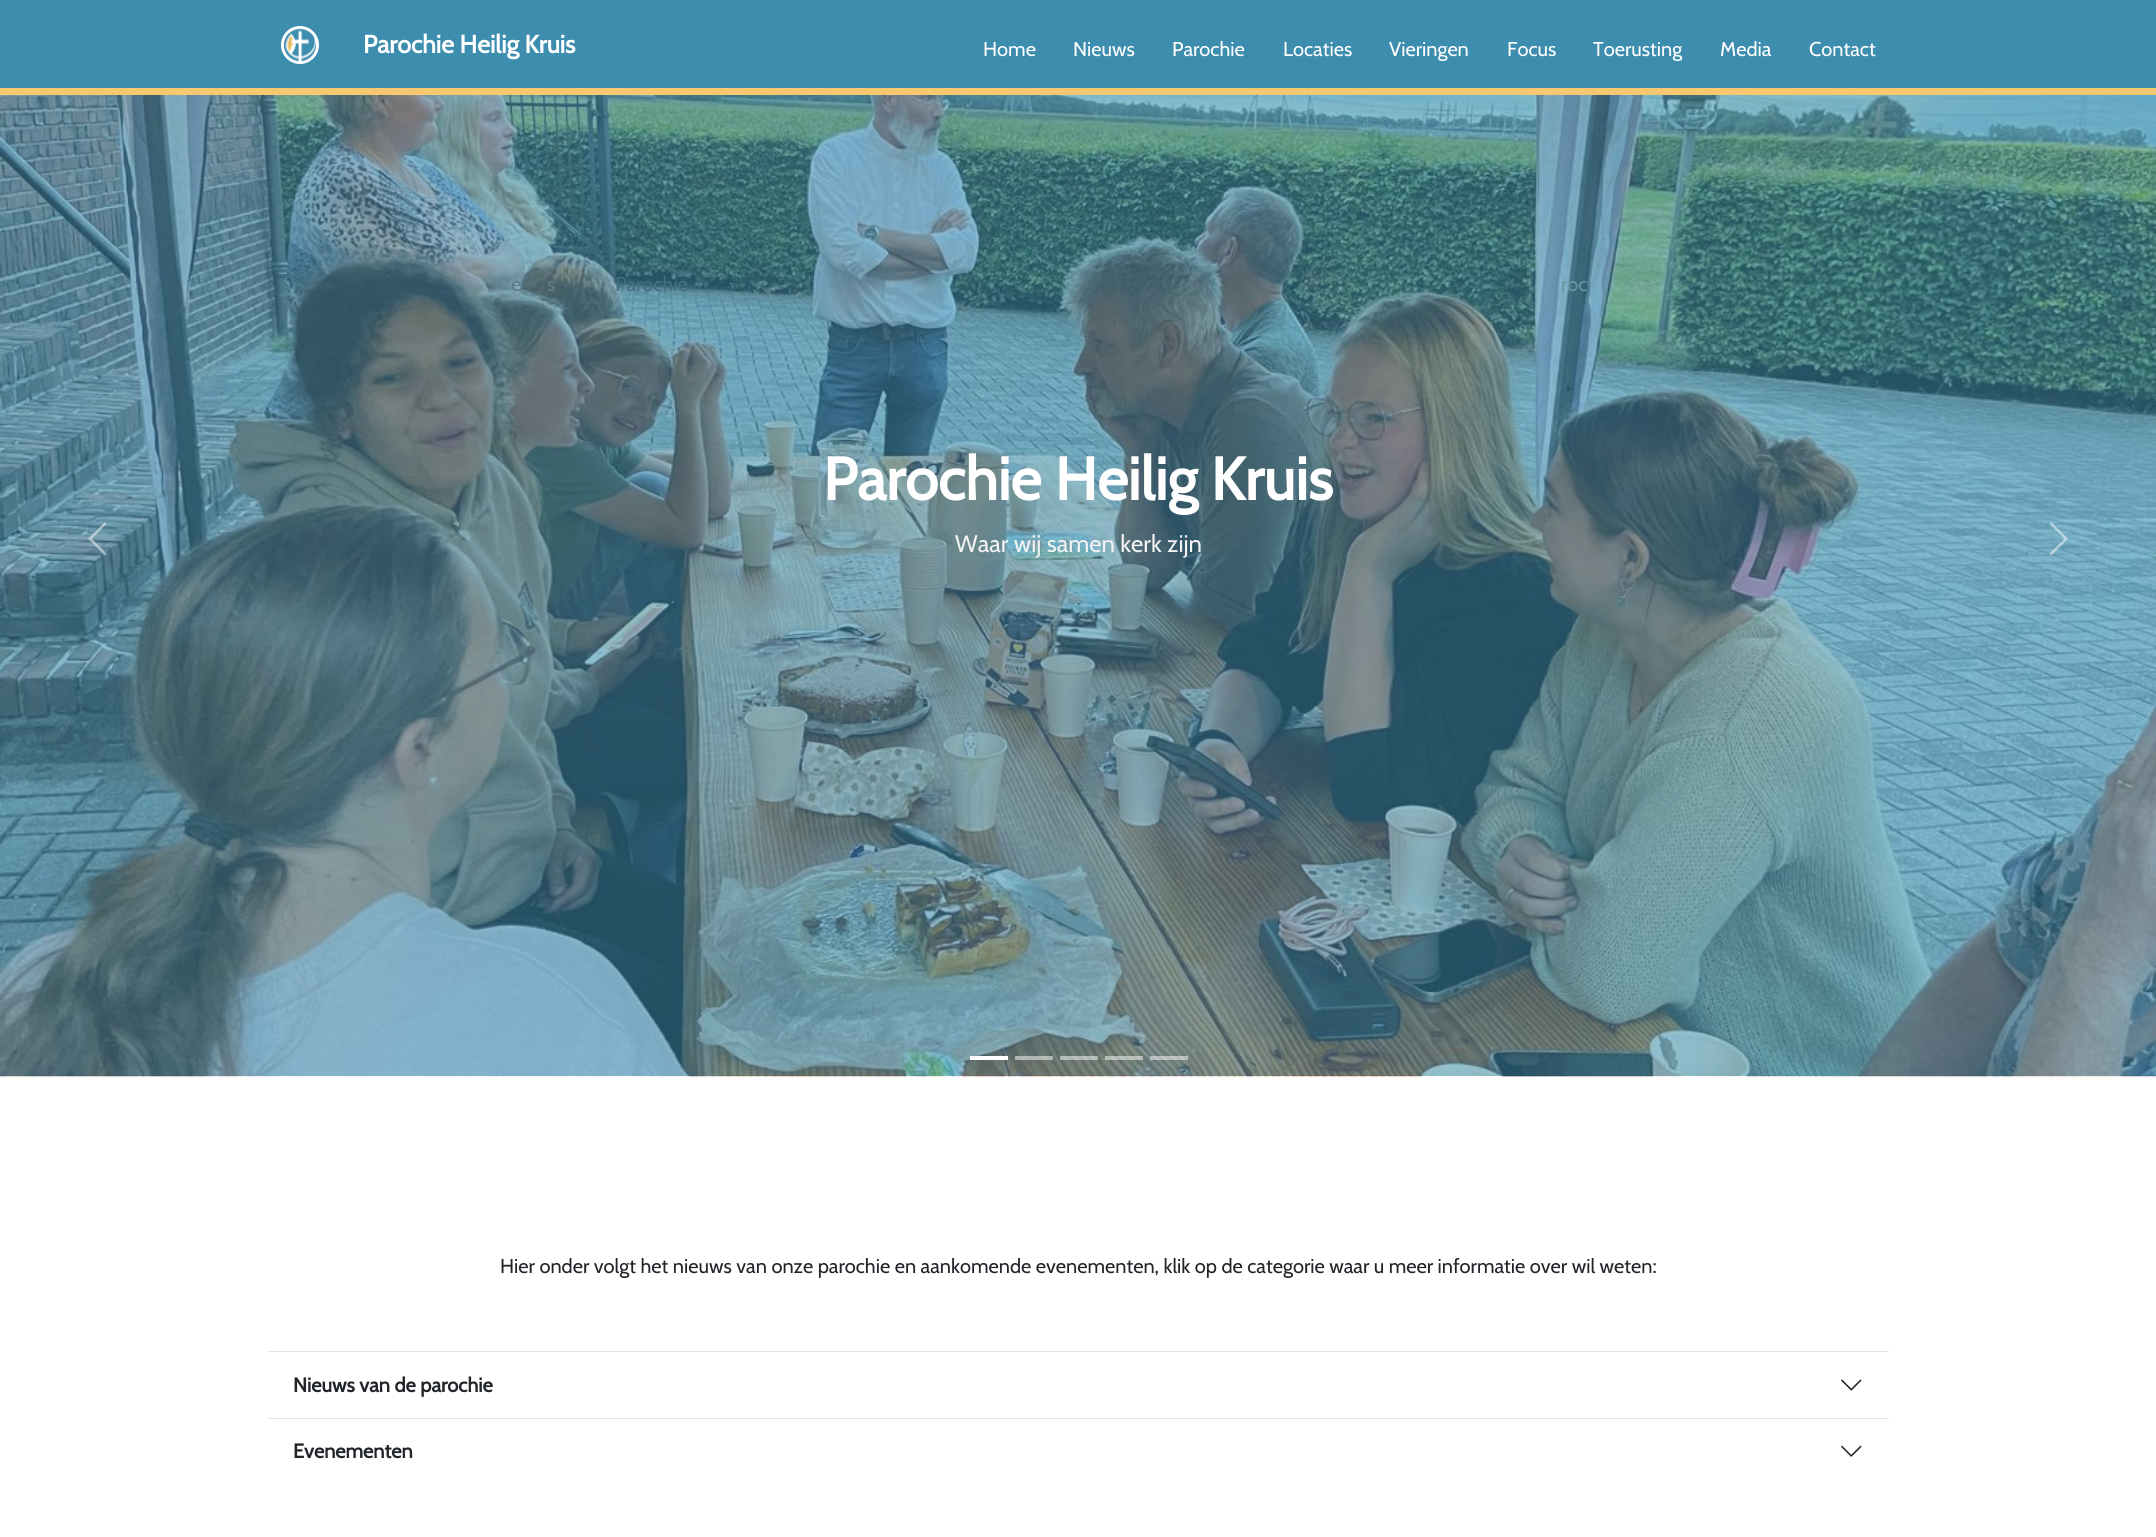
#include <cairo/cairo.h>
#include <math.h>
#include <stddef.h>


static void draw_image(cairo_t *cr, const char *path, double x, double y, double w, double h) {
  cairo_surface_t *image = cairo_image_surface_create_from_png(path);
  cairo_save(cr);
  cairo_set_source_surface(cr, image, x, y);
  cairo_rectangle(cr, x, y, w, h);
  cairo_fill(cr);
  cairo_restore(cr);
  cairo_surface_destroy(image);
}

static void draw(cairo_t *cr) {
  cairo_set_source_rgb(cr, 1, 1, 1);
  cairo_paint(cr);
  cairo_set_source_rgb(cr, 61 / 255.0, 141 / 255.0, 175 / 255.0);
  cairo_rectangle(cr, 0, 0, 2156, 88);
  cairo_fill(cr);
  cairo_set_source_rgb(cr, 246 / 255.0, 201 / 255.0, 112 / 255.0);
  cairo_rectangle(cr, 0, 88, 2156, 7);
  cairo_fill(cr);
  cairo_set_source_rgb(cr, 1, 1, 1);
  cairo_arc(cr, 300, 45, 17.5, 0, 2 * M_PI);
  cairo_fill_preserve(cr);
  cairo_set_line_width(cr, 3);
  cairo_stroke(cr);
  draw_image(cr, "images/1.png", 283, 28, 34, 34);
  draw_image(cr, "images/3.png", 0, 95, 2156, 982);
  draw_image(cr, "images/2.png", 88, 522, 19, 33);
  draw_image(cr, "images/4.png", 2050, 522, 18, 33);
  cairo_rectangle(cr, 970, 1056, 38, 4);
  cairo_fill(cr);
  cairo_set_source_rgba(cr, 1, 1, 1, 0.5);
  cairo_rectangle(cr, 1015, 1056, 38, 4);
  cairo_fill(cr);
  cairo_rectangle(cr, 1060, 1056, 38, 4);
  cairo_fill(cr);
  cairo_rectangle(cr, 1105, 1056, 38, 4);
  cairo_fill(cr);
  cairo_rectangle(cr, 1150, 1056, 38, 4);
  cairo_fill(cr);
  cairo_set_source_rgb(cr, 222 / 255.0, 226 / 255.0, 230 / 255.0);
  cairo_rectangle(cr, 269, 1351, 1620, 1);
  cairo_fill(cr);
  cairo_rectangle(cr, 269, 1418, 1620, 1);
  cairo_fill(cr);
  draw_image(cr, "images/5.png", 1841, 1379, 21, 12);
  draw_image(cr, "images/6.png", 1841, 1445, 21, 12);
  cairo_select_font_face(cr, "Cabin", CAIRO_FONT_SLANT_NORMAL, CAIRO_FONT_WEIGHT_BOLD);
  cairo_set_font_size(cr, 25);
  cairo_set_source_rgb(cr, 1, 1, 1);
  cairo_move_to(cr, 363, 53);
  cairo_show_text(cr, "Parochie Heilig Kruis");
  cairo_select_font_face(cr, "Cabin", CAIRO_FONT_SLANT_NORMAL, CAIRO_FONT_WEIGHT_NORMAL);
  cairo_set_font_size(cr, 20);
  cairo_move_to(cr, 983, 56);
  cairo_show_text(cr, "Home");
  cairo_move_to(cr, 1073, 56);
  cairo_show_text(cr, "Nieuws");
  cairo_move_to(cr, 1172, 56);
  cairo_show_text(cr, "Parochie");
  cairo_move_to(cr, 1283, 56);
  cairo_show_text(cr, "Locaties");
  cairo_move_to(cr, 1389, 56);
  cairo_show_text(cr, "Vieringen");
  cairo_move_to(cr, 1507, 56);
  cairo_show_text(cr, "Focus");
  cairo_move_to(cr, 1593, 56);
  cairo_show_text(cr, "Toerusting");
  cairo_move_to(cr, 1720, 56);
  cairo_show_text(cr, "Media");
  cairo_move_to(cr, 1809, 56);
  cairo_show_text(cr, "Contact");
  cairo_set_source_rgb(cr, 95 / 255.0, 124 / 255.0, 135 / 255.0);
  cairo_move_to(cr, 511, 291);
  cairo_show_text(cr, "e");
  cairo_move_to(cr, 547, 291);
  cairo_show_text(cr, "s");
  cairo_set_source_rgb(cr, 66 / 255.0, 110 / 255.0, 126 / 255.0);
  cairo_move_to(cr, 615, 291);
  cairo_show_text(cr, "Parochie");
  cairo_set_source_rgb(cr, 103 / 255.0, 151 / 255.0, 159 / 255.0);
  cairo_move_to(cr, 1561, 291);
  cairo_show_text(cr, "roc");
  cairo_select_font_face(cr, "Cabin", CAIRO_FONT_SLANT_NORMAL, CAIRO_FONT_WEIGHT_BOLD);
  cairo_set_font_size(cr, 60);
  cairo_set_source_rgb(cr, 1, 1, 1);
  cairo_move_to(cr, 823, 500);
  cairo_show_text(cr, "Parochie Heilig Kruis");
  cairo_select_font_face(cr, "Cabin", CAIRO_FONT_SLANT_NORMAL, CAIRO_FONT_WEIGHT_NORMAL);
  cairo_set_font_size(cr, 24);
  cairo_set_source_rgb(cr, 242 / 255.0, 242 / 255.0, 242 / 255.0);
  cairo_move_to(cr, 955, 552);
  cairo_show_text(cr, "Waar wij samen kerk zijn");
  cairo_set_font_size(cr, 20);
  cairo_set_source_rgb(cr, 33 / 255.0, 37 / 255.0, 41 / 255.0);
  cairo_move_to(cr, 500, 1273);
  cairo_show_text(cr, "Hier onder volgt het nieuws van onze parochie en aankomende evenementen, klik op de categorie waar u meer informatie over wil weten:");
  cairo_select_font_face(cr, "Cabin", CAIRO_FONT_SLANT_NORMAL, CAIRO_FONT_WEIGHT_BOLD);
  cairo_move_to(cr, 293, 1392);
  cairo_show_text(cr, "Nieuws van de parochie");
  cairo_move_to(cr, 293, 1458);
  cairo_show_text(cr, "Evenementen");
}

int main(void) {
  cairo_surface_t *surface = cairo_image_surface_create(CAIRO_FORMAT_RGB24, 2156, 1537);
  cairo_t *cr = cairo_create(surface);
  cairo_font_options_t *options = cairo_font_options_create();
  cairo_font_options_set_hint_metrics(options, CAIRO_HINT_METRICS_OFF);
  cairo_font_options_set_hint_style(options, CAIRO_HINT_STYLE_NONE);
  cairo_set_font_options(cr, options);
  cairo_set_miter_limit(cr, 4);
  draw(cr);
  cairo_surface_write_to_png(surface, "out.png");
  cairo_font_options_destroy(options);
  cairo_destroy(cr);
  cairo_surface_destroy(surface);
  return 0;
}
